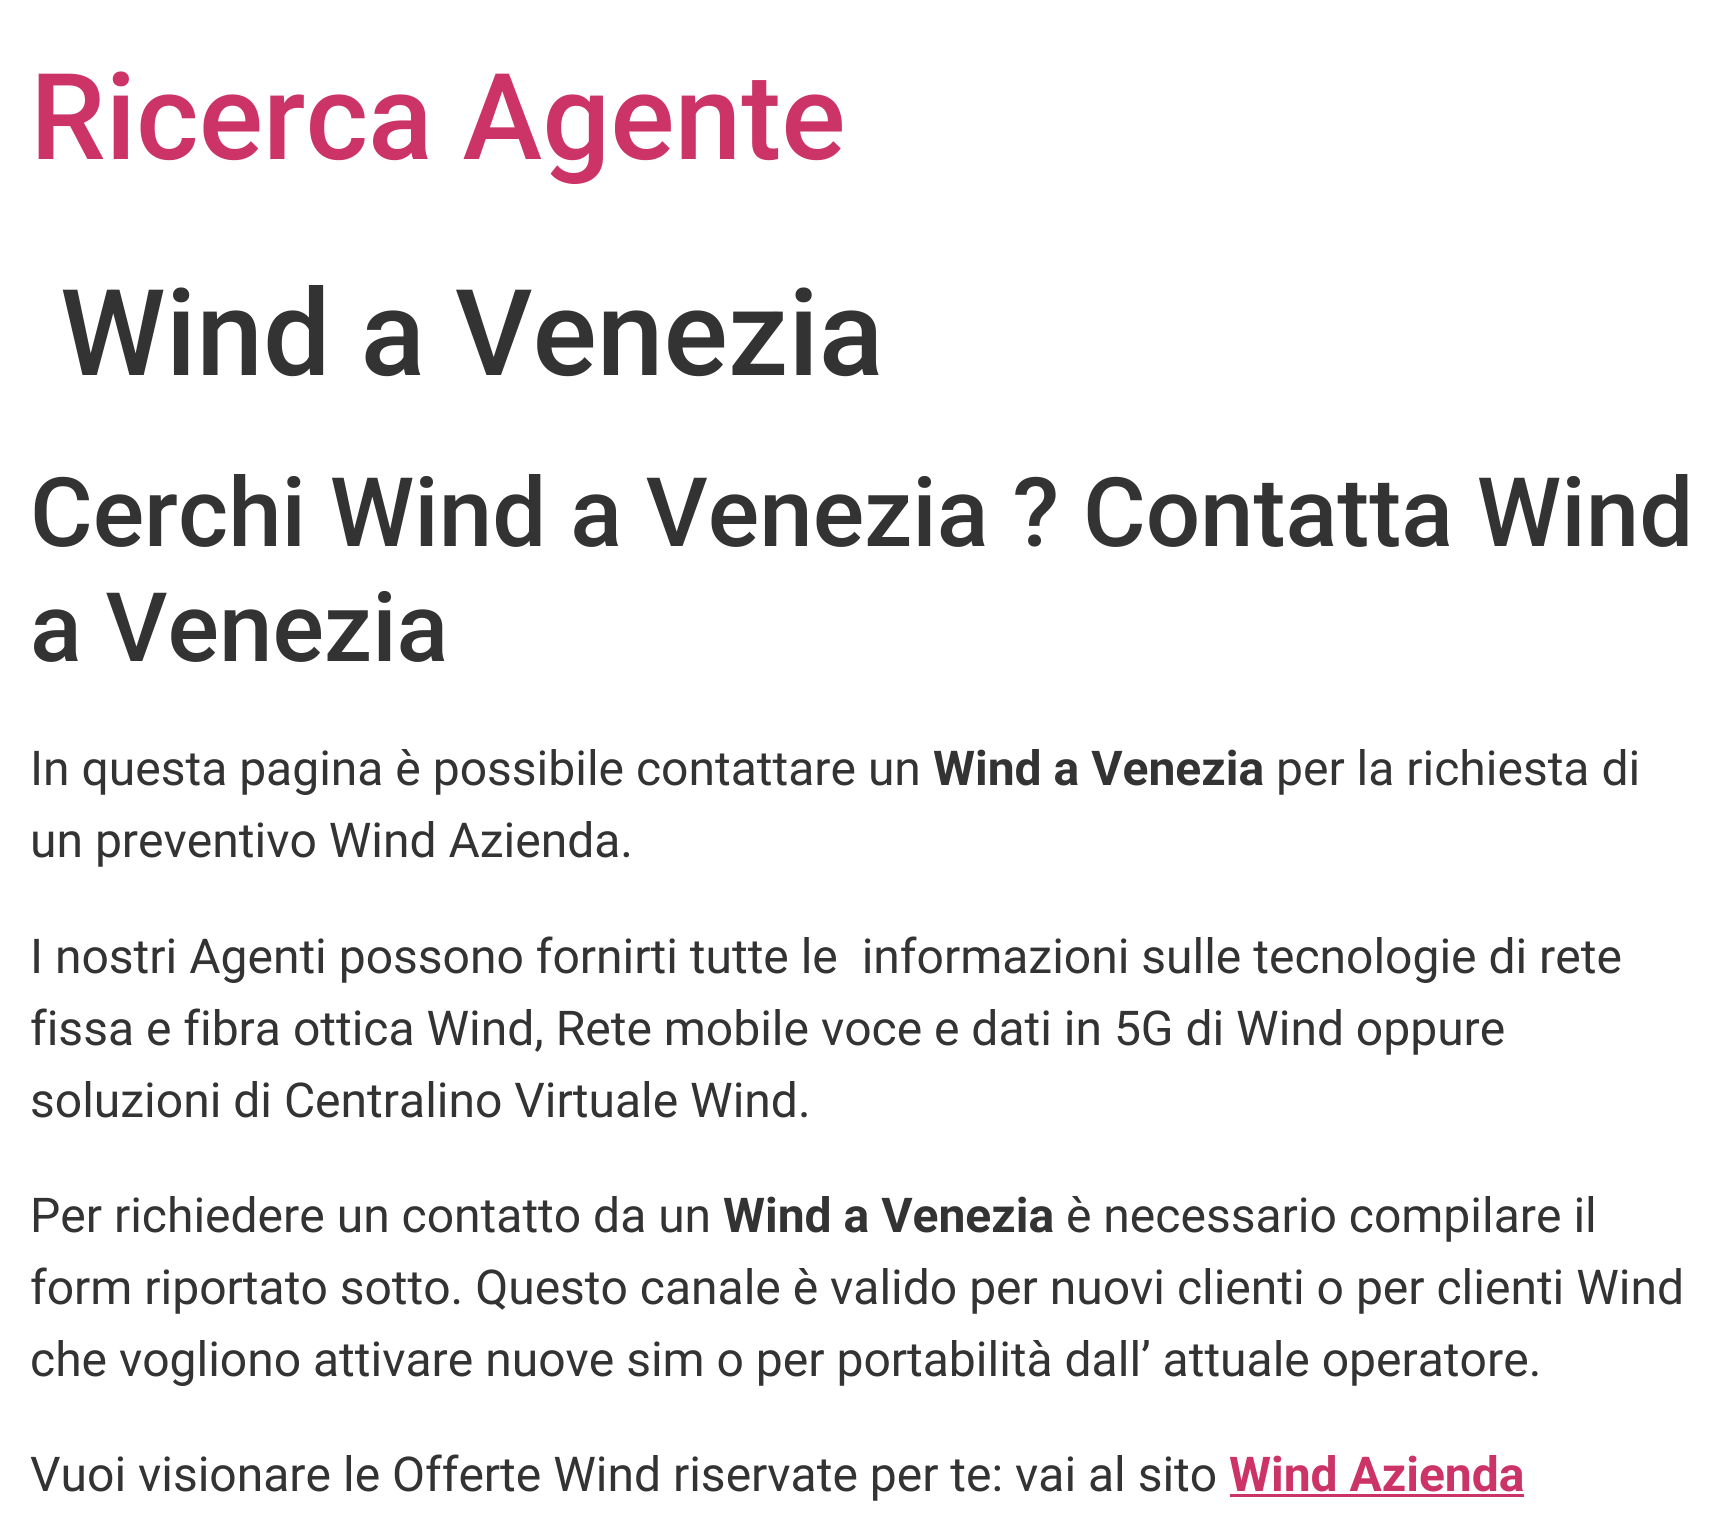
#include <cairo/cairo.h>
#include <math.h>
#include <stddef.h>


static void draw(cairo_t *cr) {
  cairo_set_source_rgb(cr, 1, 1, 1);
  cairo_paint(cr);
  cairo_set_source_rgb(cr, 204 / 255.0, 51 / 255.0, 102 / 255.0);
  cairo_rectangle(cr, 1230, 1494, 294, 3);
  cairo_fill(cr);
  cairo_select_font_face(cr, "Roboto Medium", CAIRO_FONT_SLANT_NORMAL, CAIRO_FONT_WEIGHT_NORMAL);
  cairo_set_font_size(cr, 120);
  cairo_move_to(cr, 30, 159);
  cairo_show_text(cr, "Ricerca Agente");
  cairo_set_source_rgb(cr, 51 / 255.0, 51 / 255.0, 51 / 255.0);
  cairo_move_to(cr, 60, 375);
  cairo_show_text(cr, "Wind a Venezia");
  cairo_set_font_size(cr, 96);
  cairo_move_to(cr, 30, 546);
  cairo_show_text(cr, "Cerchi Wind a Venezia ? Contatta Wind");
  cairo_move_to(cr, 30, 661);
  cairo_show_text(cr, "a Venezia");
  cairo_select_font_face(cr, "Roboto", CAIRO_FONT_SLANT_NORMAL, CAIRO_FONT_WEIGHT_NORMAL);
  cairo_set_font_size(cr, 48);
  cairo_move_to(cr, 30, 785);
  cairo_show_text(cr, "In questa pagina è possibile contattare un");
  cairo_select_font_face(cr, "Roboto", CAIRO_FONT_SLANT_NORMAL, CAIRO_FONT_WEIGHT_BOLD);
  cairo_move_to(cr, 933, 785);
  cairo_show_text(cr, "Wind a Venezia");
  cairo_select_font_face(cr, "Roboto", CAIRO_FONT_SLANT_NORMAL, CAIRO_FONT_WEIGHT_NORMAL);
  cairo_move_to(cr, 1276, 785);
  cairo_show_text(cr, "per la richiesta di");
  cairo_move_to(cr, 30, 857);
  cairo_show_text(cr, "un preventivo Wind Azienda.");
  cairo_move_to(cr, 30, 973);
  cairo_show_text(cr, "I nostri Agenti possono fornirti tutte le  informazioni sulle tecnologie di rete");
  cairo_move_to(cr, 30, 1045);
  cairo_show_text(cr, "fissa e fibra ottica Wind, Rete mobile voce e dati in 5G di Wind oppure");
  cairo_move_to(cr, 30, 1117);
  cairo_show_text(cr, "soluzioni di Centralino Virtuale Wind.");
  cairo_move_to(cr, 30, 1232);
  cairo_show_text(cr, "Per richiedere un contatto da un");
  cairo_select_font_face(cr, "Roboto", CAIRO_FONT_SLANT_NORMAL, CAIRO_FONT_WEIGHT_BOLD);
  cairo_move_to(cr, 723, 1232);
  cairo_show_text(cr, "Wind a Venezia");
  cairo_select_font_face(cr, "Roboto", CAIRO_FONT_SLANT_NORMAL, CAIRO_FONT_WEIGHT_NORMAL);
  cairo_move_to(cr, 1066, 1232);
  cairo_show_text(cr, "è necessario compilare il");
  cairo_move_to(cr, 30, 1304);
  cairo_show_text(cr, "form riportato sotto. Questo canale è valido per nuovi clienti o per clienti Wind");
  cairo_move_to(cr, 30, 1376);
  cairo_show_text(cr, "che vogliono attivare nuove sim o per portabilità dall’ attuale operatore.");
  cairo_move_to(cr, 30, 1491);
  cairo_show_text(cr, "Vuoi visionare le Offerte Wind riservate per te: vai al sito");
  cairo_select_font_face(cr, "Roboto", CAIRO_FONT_SLANT_NORMAL, CAIRO_FONT_WEIGHT_BOLD);
  cairo_set_source_rgb(cr, 204 / 255.0, 51 / 255.0, 102 / 255.0);
  cairo_move_to(cr, 1229, 1491);
  cairo_show_text(cr, "Wind Azienda");
}

int main(void) {
  cairo_surface_t *surface = cairo_image_surface_create(CAIRO_FORMAT_RGB24, 1723, 1516);
  cairo_t *cr = cairo_create(surface);
  cairo_font_options_t *options = cairo_font_options_create();
  cairo_font_options_set_hint_metrics(options, CAIRO_HINT_METRICS_OFF);
  cairo_font_options_set_hint_style(options, CAIRO_HINT_STYLE_NONE);
  cairo_set_font_options(cr, options);
  cairo_set_miter_limit(cr, 4);
  draw(cr);
  cairo_surface_write_to_png(surface, "out.png");
  cairo_font_options_destroy(options);
  cairo_destroy(cr);
  cairo_surface_destroy(surface);
  return 0;
}
